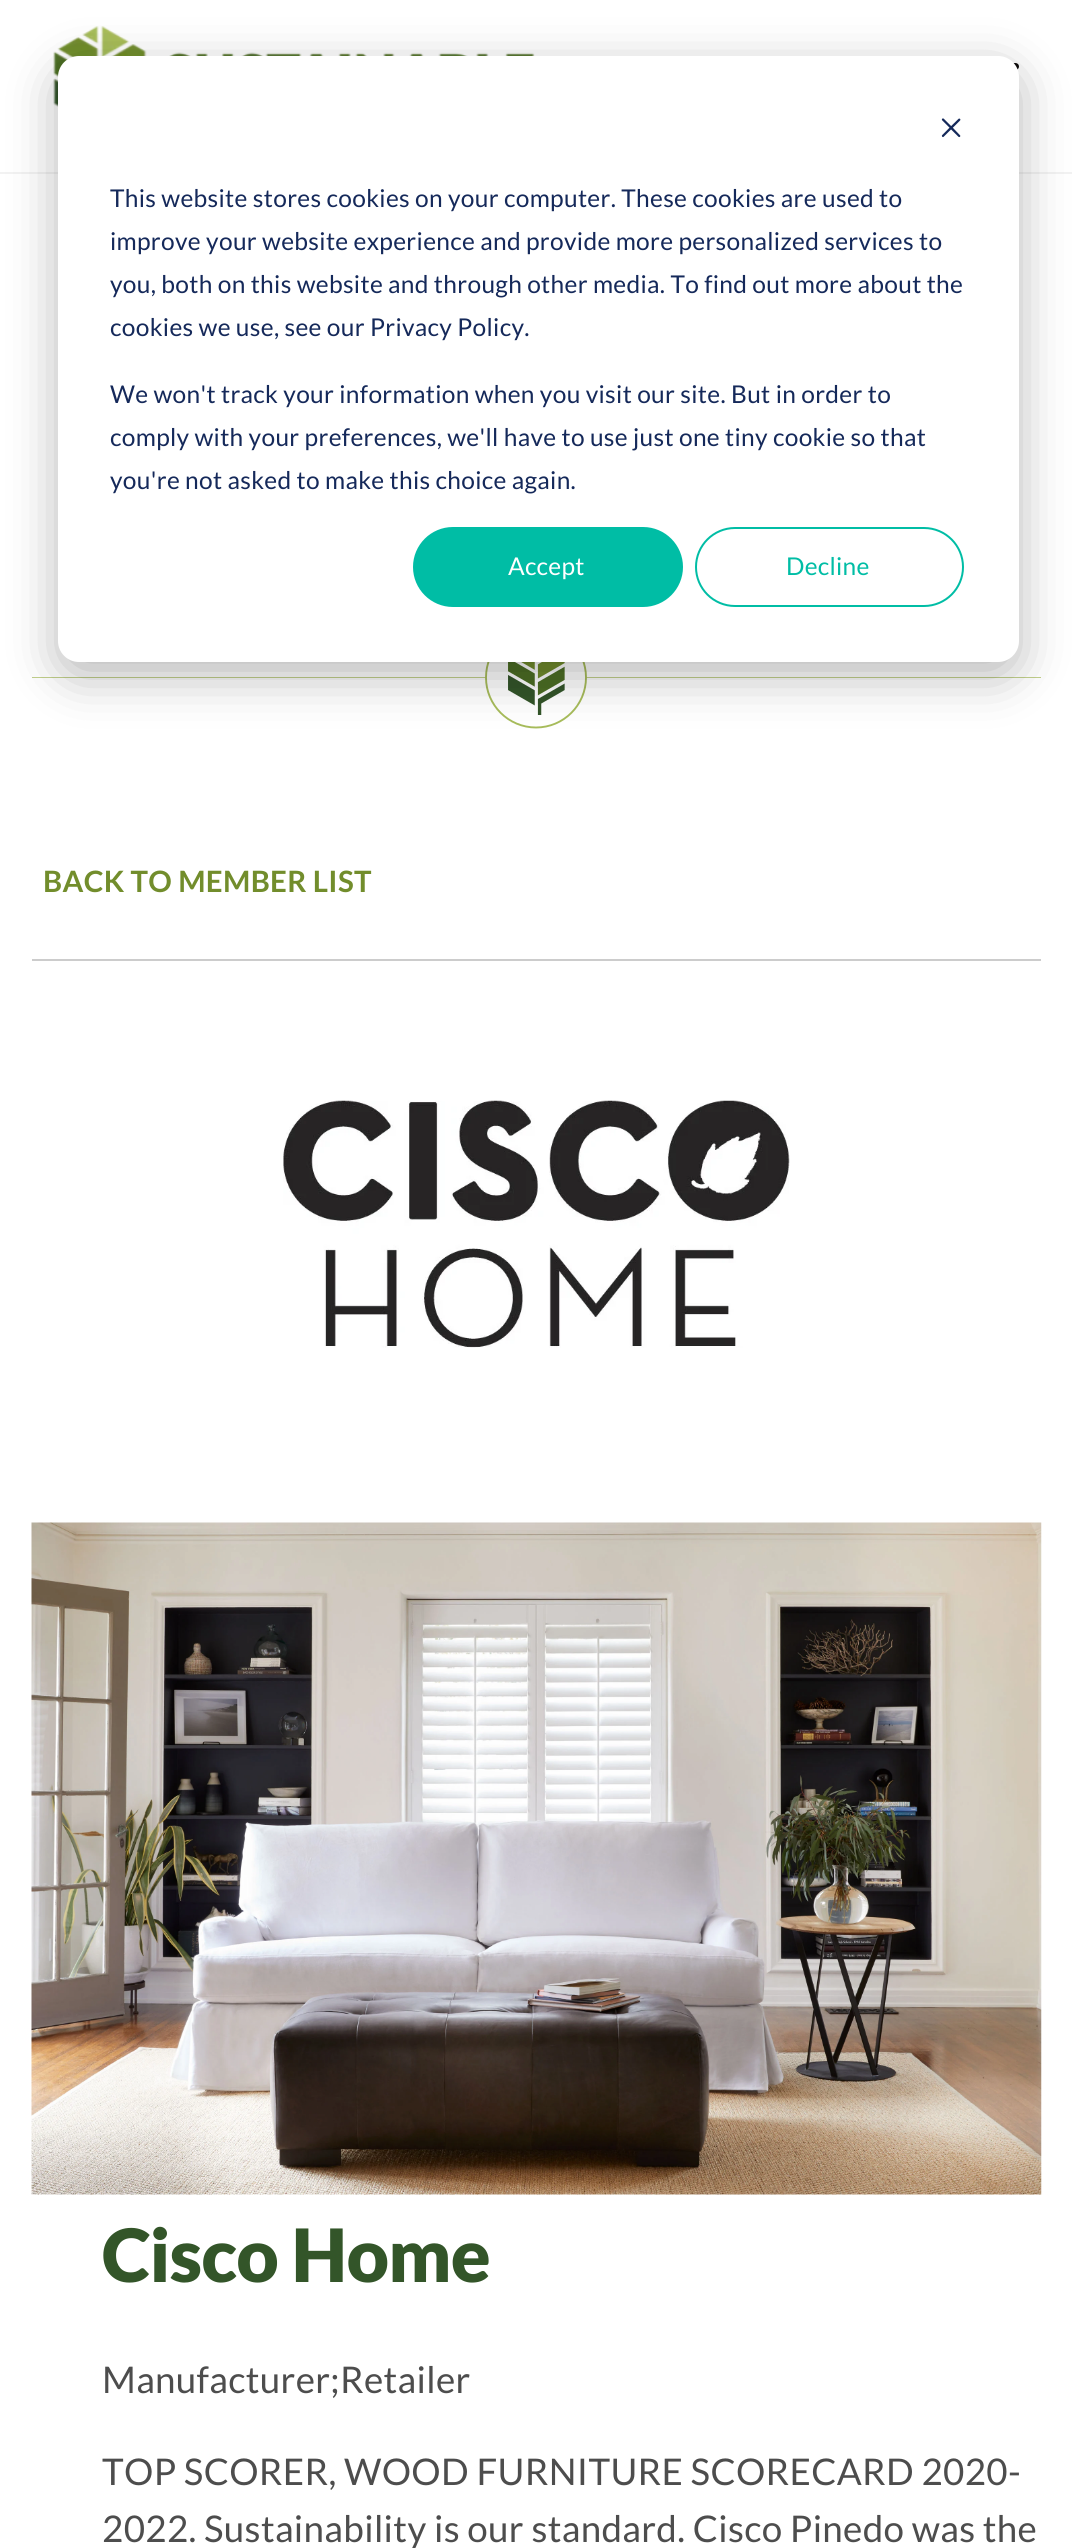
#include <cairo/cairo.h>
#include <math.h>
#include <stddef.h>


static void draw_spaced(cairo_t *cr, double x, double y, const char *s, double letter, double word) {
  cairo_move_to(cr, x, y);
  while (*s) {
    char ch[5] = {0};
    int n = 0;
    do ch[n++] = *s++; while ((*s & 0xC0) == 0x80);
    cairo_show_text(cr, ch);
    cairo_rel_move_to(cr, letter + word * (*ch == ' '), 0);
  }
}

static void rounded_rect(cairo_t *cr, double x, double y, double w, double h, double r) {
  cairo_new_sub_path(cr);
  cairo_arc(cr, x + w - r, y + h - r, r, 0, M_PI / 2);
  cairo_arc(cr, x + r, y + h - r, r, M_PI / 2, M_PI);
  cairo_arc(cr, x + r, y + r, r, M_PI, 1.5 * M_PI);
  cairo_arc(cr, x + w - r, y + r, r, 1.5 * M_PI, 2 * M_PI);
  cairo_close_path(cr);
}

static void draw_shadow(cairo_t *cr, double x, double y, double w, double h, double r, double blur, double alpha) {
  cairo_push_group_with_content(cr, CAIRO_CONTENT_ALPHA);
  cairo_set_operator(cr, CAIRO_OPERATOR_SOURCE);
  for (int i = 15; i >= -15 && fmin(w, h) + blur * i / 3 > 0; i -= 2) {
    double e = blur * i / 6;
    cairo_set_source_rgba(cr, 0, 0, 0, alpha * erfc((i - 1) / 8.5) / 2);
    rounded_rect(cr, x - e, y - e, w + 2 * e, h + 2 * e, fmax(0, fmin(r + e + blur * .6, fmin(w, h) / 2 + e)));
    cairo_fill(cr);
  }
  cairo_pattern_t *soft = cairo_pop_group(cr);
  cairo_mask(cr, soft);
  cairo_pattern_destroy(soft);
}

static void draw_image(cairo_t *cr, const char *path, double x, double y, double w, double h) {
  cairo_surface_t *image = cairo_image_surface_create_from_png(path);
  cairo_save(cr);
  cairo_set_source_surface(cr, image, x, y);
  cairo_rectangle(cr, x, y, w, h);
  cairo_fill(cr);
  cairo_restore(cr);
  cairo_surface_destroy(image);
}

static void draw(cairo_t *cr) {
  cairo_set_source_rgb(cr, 1, 1, 1);
  cairo_paint(cr);
  cairo_set_source_rgb(cr, 242 / 255.0, 242 / 255.0, 242 / 255.0);
  cairo_rectangle(cr, 0, 172, 1072, 2);
  cairo_fill(cr);
  draw_image(cr, "images/2.png", 53, 26, 482, 81);
  cairo_set_source_rgb(cr, 13 / 255.0, 10 / 255.0, 10 / 255.0);
  rounded_rect(cr, 952, 63, 67, 7, 3.5);
  cairo_fill(cr);
  draw_image(cr, "images/3.png", 32, 662, 1009, 67);
  cairo_set_source_rgb(cr, 0, 0, 0);
  draw_shadow(cr, 58, 70, 961, 606, 21, 24.5, 0.28);
  cairo_set_source_rgb(cr, 1, 1, 1);
  rounded_rect(cr, 58, 56, 961, 606, 21);
  cairo_fill(cr);
  draw_image(cr, "images/1.png", 941, 118, 20, 20);
  cairo_set_source_rgb(cr, 0, 189 / 255.0, 165 / 255.0);
  rounded_rect(cr, 414, 528, 268, 78, 39);
  cairo_fill_preserve(cr);
  cairo_stroke(cr);
  rounded_rect(cr, 696, 528, 267, 78, 39);
  cairo_stroke(cr);
  cairo_set_source_rgb(cr, 204 / 255.0, 204 / 255.0, 204 / 255.0);
  cairo_rectangle(cr, 32, 959, 1009, 2);
  cairo_fill(cr);
  draw_image(cr, "images/4.png", 283, 1100, 507, 248);
  draw_image(cr, "images/5.png", 31, 1522, 1011, 673);
  cairo_select_font_face(cr, "Lato", CAIRO_FONT_SLANT_NORMAL, CAIRO_FONT_WEIGHT_NORMAL);
  cairo_set_font_size(cr, 24.5);
  cairo_set_source_rgb(cr, 21 / 255.0, 41 / 255.0, 90 / 255.0);
  draw_spaced(cr, 110, 207, "This website stores cookies on your computer. These cookies are used to", 0.32, 0);
  draw_spaced(cr, 110, 250, "improve your website experience and provide more personalized services to", 0.32, 0);
  draw_spaced(cr, 110, 293, "you, both on this website and through other media. To find out more about the", 0.32, 0);
  draw_spaced(cr, 110, 336, "cookies we use, see our Privacy Policy.", 0.32, 0);
  draw_spaced(cr, 110, 403, "We won't track your information when you visit our site. But in order to", 0.32, 0);
  draw_spaced(cr, 110, 446, "comply with your preferences, we'll have to use just one tiny cookie so that", 0.32, 0);
  draw_spaced(cr, 110, 489, "you're not asked to make this choice again.", 0.32, 0);
  cairo_set_source_rgb(cr, 1, 1, 1);
  draw_spaced(cr, 508, 575, "Accept", 0.25, 0);
  cairo_set_source_rgb(cr, 0, 189 / 255.0, 165 / 255.0);
  draw_spaced(cr, 786, 575, "Decline", 0.25, 0);
  cairo_select_font_face(cr, "Lato", CAIRO_FONT_SLANT_NORMAL, CAIRO_FONT_WEIGHT_BOLD);
  cairo_set_font_size(cr, 29.4);
  cairo_set_source_rgb(cr, 114 / 255.0, 141 / 255.0, 44 / 255.0);
  draw_spaced(cr, 43, 892, "BACK TO MEMBER LIST", 0.32, 0);
  cairo_select_font_face(cr, "Lato Black", CAIRO_FONT_SLANT_NORMAL, CAIRO_FONT_WEIGHT_NORMAL);
  cairo_set_font_size(cr, 73.5);
  cairo_set_source_rgb(cr, 51 / 255.0, 85 / 255.0, 41 / 255.0);
  draw_spaced(cr, 102, 2282, "Cisco Home", -0.75, 0);
  cairo_select_font_face(cr, "Lato", CAIRO_FONT_SLANT_NORMAL, CAIRO_FONT_WEIGHT_NORMAL);
  cairo_set_font_size(cr, 36.75);
  cairo_set_source_rgb(cr, 77 / 255.0, 77 / 255.0, 77 / 255.0);
  draw_spaced(cr, 102, 2393, "Manufacturer;Retailer", 0.32, 0);
  draw_spaced(cr, 102, 2485, "TOP SCORER, WOOD FURNITURE SCORECARD 2020-", 0.32, 0);
  draw_spaced(cr, 102, 2542, "2022. Sustainability is our standard. Cisco Pinedo was the", 0.32, 0);
}

int main(void) {
  cairo_surface_t *surface = cairo_image_surface_create(CAIRO_FORMAT_RGB24, 1072, 2548);
  cairo_t *cr = cairo_create(surface);
  cairo_font_options_t *options = cairo_font_options_create();
  cairo_font_options_set_hint_metrics(options, CAIRO_HINT_METRICS_OFF);
  cairo_font_options_set_hint_style(options, CAIRO_HINT_STYLE_NONE);
  cairo_set_font_options(cr, options);
  cairo_set_miter_limit(cr, 4);
  draw(cr);
  cairo_surface_write_to_png(surface, "out.png");
  cairo_font_options_destroy(options);
  cairo_destroy(cr);
  cairo_surface_destroy(surface);
  return 0;
}
